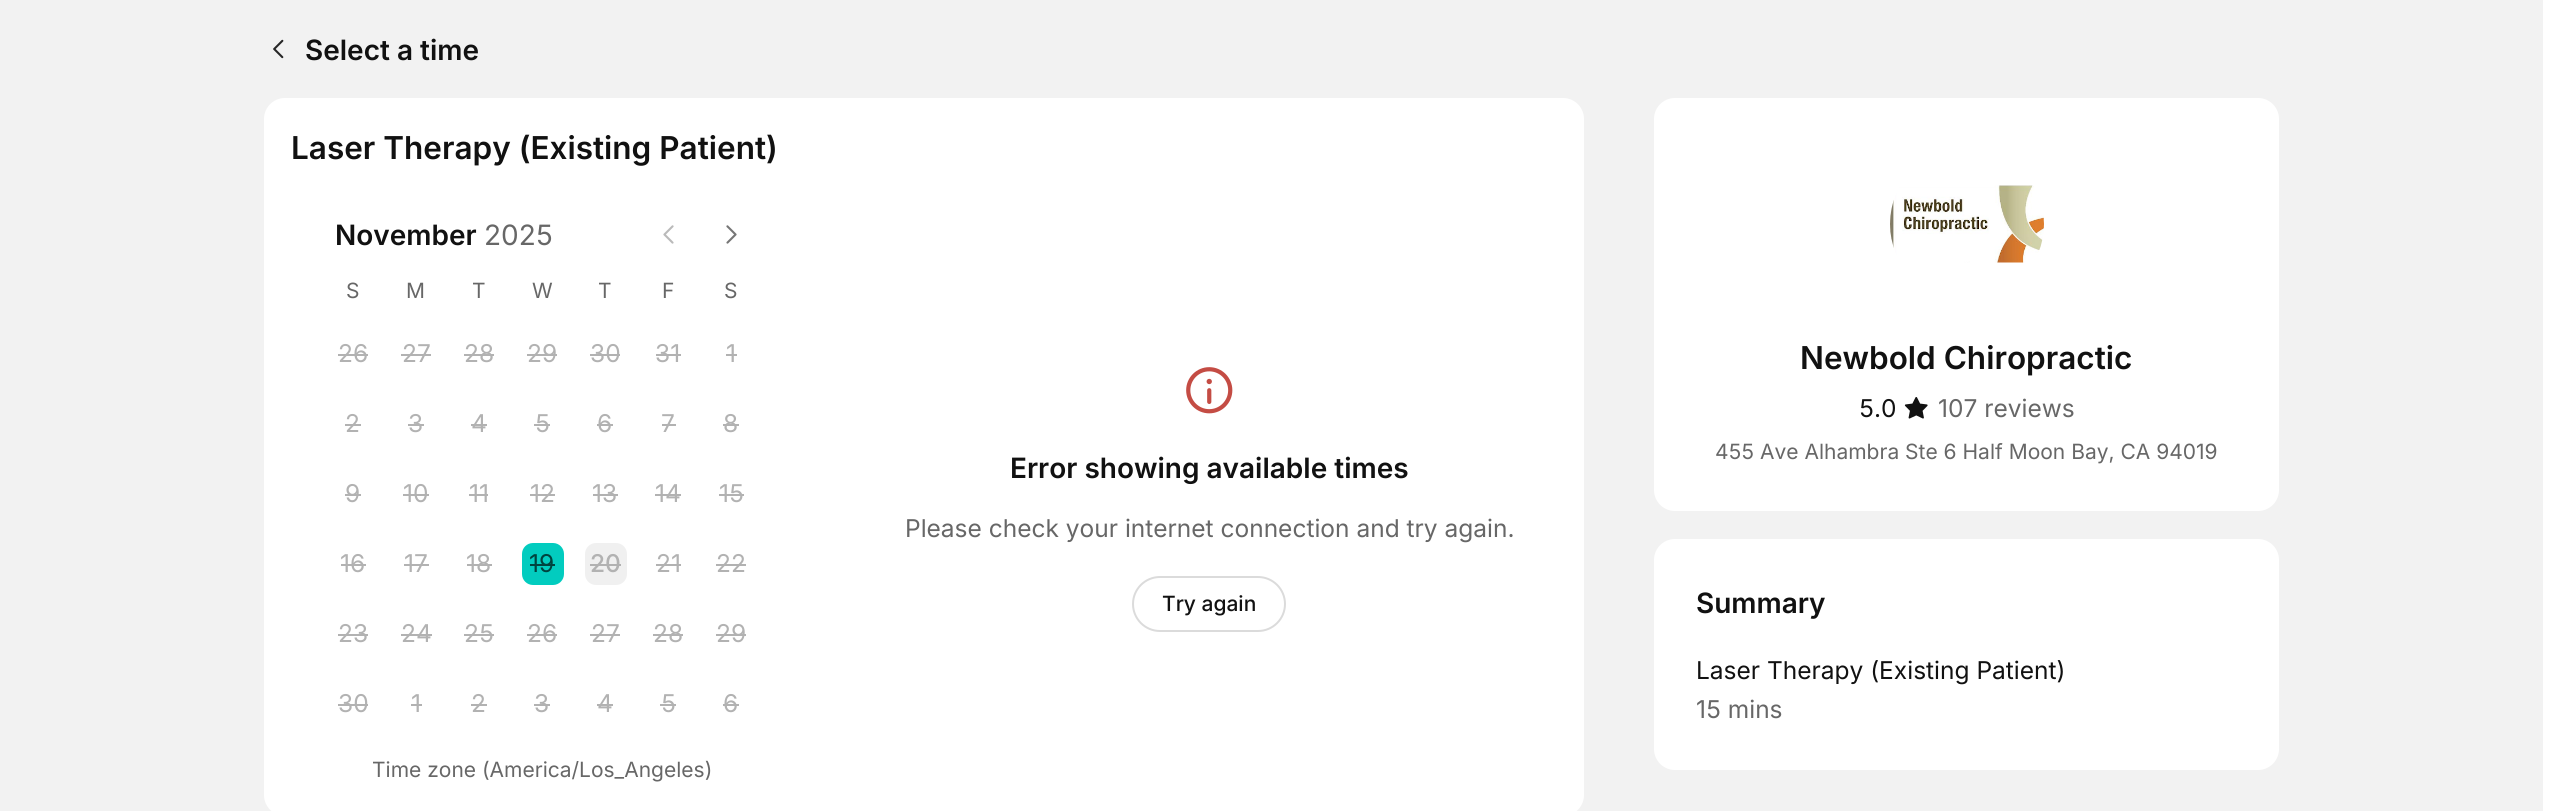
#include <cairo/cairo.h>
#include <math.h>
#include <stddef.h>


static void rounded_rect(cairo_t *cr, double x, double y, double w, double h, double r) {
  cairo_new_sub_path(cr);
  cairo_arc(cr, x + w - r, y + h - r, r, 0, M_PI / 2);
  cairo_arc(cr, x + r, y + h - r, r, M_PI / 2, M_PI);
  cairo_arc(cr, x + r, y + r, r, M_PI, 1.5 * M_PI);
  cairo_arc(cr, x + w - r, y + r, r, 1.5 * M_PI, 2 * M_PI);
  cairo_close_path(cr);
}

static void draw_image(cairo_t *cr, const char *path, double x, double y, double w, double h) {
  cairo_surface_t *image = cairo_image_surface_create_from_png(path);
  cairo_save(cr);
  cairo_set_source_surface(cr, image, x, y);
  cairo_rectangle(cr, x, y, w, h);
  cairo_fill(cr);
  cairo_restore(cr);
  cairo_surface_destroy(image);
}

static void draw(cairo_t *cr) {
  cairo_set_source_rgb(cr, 1, 1, 1);
  cairo_paint(cr);
  cairo_set_source_rgb(cr, 242 / 255.0, 242 / 255.0, 242 / 255.0);
  cairo_rectangle(cr, 0, 0, 2543, 811);
  cairo_fill(cr);
  draw_image(cr, "images/1.png", 273, 39, 11, 20);
  cairo_set_source_rgb(cr, 1, 1, 1);
  rounded_rect(cr, 264, 98, 1320, 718, 21);
  cairo_fill(cr);
  draw_image(cr, "images/2.png", 663, 225, 11, 19);
  draw_image(cr, "images/3.png", 726, 225, 11, 19);
  cairo_set_source_rgb(cr, 178 / 255.0, 178 / 255.0, 178 / 255.0);
  cairo_rectangle(cr, 338, 354, 30, 2);
  cairo_fill(cr);
  cairo_rectangle(cr, 401, 354, 30, 2);
  cairo_fill(cr);
  cairo_rectangle(cr, 464, 354, 30, 2);
  cairo_fill(cr);
  cairo_rectangle(cr, 527, 354, 30, 2);
  cairo_fill(cr);
  cairo_rectangle(cr, 590, 354, 30, 2);
  cairo_fill(cr);
  cairo_rectangle(cr, 656, 354, 25, 2);
  cairo_fill(cr);
  cairo_rectangle(cr, 726, 354, 11, 2);
  cairo_fill(cr);
  cairo_rectangle(cr, 345, 424, 16, 2);
  cairo_fill(cr);
  cairo_rectangle(cr, 408, 424, 16, 2);
  cairo_fill(cr);
  cairo_rectangle(cr, 471, 424, 16, 2);
  cairo_fill(cr);
  cairo_rectangle(cr, 534, 424, 16, 2);
  cairo_fill(cr);
  cairo_rectangle(cr, 597, 424, 16, 2);
  cairo_fill(cr);
  cairo_rectangle(cr, 662, 424, 14, 2);
  cairo_fill(cr);
  cairo_rectangle(cr, 723, 424, 16, 2);
  cairo_fill(cr);
  cairo_rectangle(cr, 345, 494, 16, 2);
  cairo_fill(cr);
  cairo_rectangle(cr, 403, 494, 26, 2);
  cairo_fill(cr);
  cairo_rectangle(cr, 469, 494, 19, 2);
  cairo_fill(cr);
  cairo_rectangle(cr, 530, 494, 25, 2);
  cairo_fill(cr);
  cairo_rectangle(cr, 593, 494, 25, 2);
  cairo_fill(cr);
  cairo_rectangle(cr, 655, 494, 26, 2);
  cairo_fill(cr);
  cairo_rectangle(cr, 719, 494, 25, 2);
  cairo_fill(cr);
  cairo_rectangle(cr, 341, 564, 25, 2);
  cairo_fill(cr);
  cairo_rectangle(cr, 404, 564, 25, 2);
  cairo_fill(cr);
  cairo_rectangle(cr, 467, 564, 25, 2);
  cairo_fill(cr);
  cairo_set_source_rgb(cr, 2 / 255.0, 204 / 255.0, 191 / 255.0);
  rounded_rect(cr, 522, 543, 42, 42, 11);
  cairo_fill(cr);
  cairo_set_source_rgb(cr, 0, 68 / 255.0, 63 / 255.0);
  cairo_rectangle(cr, 530, 564, 25, 2);
  cairo_fill(cr);
  cairo_set_source_rgb(cr, 240 / 255.0, 240 / 255.0, 240 / 255.0);
  rounded_rect(cr, 585, 543, 42, 42, 11);
  cairo_fill(cr);
  cairo_set_source_rgb(cr, 178 / 255.0, 178 / 255.0, 178 / 255.0);
  cairo_rectangle(cr, 590, 564, 31, 2);
  cairo_fill(cr);
  cairo_rectangle(cr, 656, 564, 25, 2);
  cairo_fill(cr);
  cairo_rectangle(cr, 716, 564, 30, 2);
  cairo_fill(cr);
  cairo_rectangle(cr, 338, 634, 30, 2);
  cairo_fill(cr);
  cairo_rectangle(cr, 401, 634, 31, 2);
  cairo_fill(cr);
  cairo_rectangle(cr, 464, 634, 30, 2);
  cairo_fill(cr);
  cairo_rectangle(cr, 527, 634, 30, 2);
  cairo_fill(cr);
  cairo_rectangle(cr, 590, 634, 30, 2);
  cairo_fill(cr);
  cairo_rectangle(cr, 653, 634, 30, 2);
  cairo_fill(cr);
  cairo_rectangle(cr, 716, 634, 30, 2);
  cairo_fill(cr);
  cairo_rectangle(cr, 338, 704, 30, 2);
  cairo_fill(cr);
  cairo_rectangle(cr, 411, 704, 11, 2);
  cairo_fill(cr);
  cairo_rectangle(cr, 471, 704, 16, 2);
  cairo_fill(cr);
  cairo_rectangle(cr, 534, 704, 16, 2);
  cairo_fill(cr);
  cairo_rectangle(cr, 597, 704, 16, 2);
  cairo_fill(cr);
  cairo_rectangle(cr, 660, 704, 16, 2);
  cairo_fill(cr);
  cairo_rectangle(cr, 723, 704, 16, 2);
  cairo_fill(cr);
  draw_image(cr, "images/4.png", 1186, 367, 47, 47);
  rounded_rect(cr, 1133, 577, 152, 54, 27);
  cairo_set_source_rgb(cr, 219 / 255.0, 219 / 255.0, 219 / 255.0);
  cairo_stroke(cr);
  cairo_set_source_rgb(cr, 1, 1, 1);
  rounded_rect(cr, 1654, 98, 625, 413, 21);
  cairo_fill(cr);
  draw_image(cr, "images/5.png", 1890, 185, 154, 78);
  draw_image(cr, "images/6.png", 1904, 397, 24, 22);
  rounded_rect(cr, 1654, 539, 625, 231, 21);
  cairo_fill(cr);
  cairo_select_font_face(cr, "Inter SemiBold", CAIRO_FONT_SLANT_NORMAL, CAIRO_FONT_WEIGHT_NORMAL);
  cairo_set_font_size(cr, 28);
  cairo_set_source_rgb(cr, 17 / 255.0, 17 / 255.0, 17 / 255.0);
  cairo_move_to(cr, 305, 60);
  cairo_show_text(cr, "Select a time");
  cairo_set_font_size(cr, 31.5);
  cairo_move_to(cr, 291, 159);
  cairo_show_text(cr, "Laser Therapy (Existing Patient)");
  cairo_set_font_size(cr, 28);
  cairo_move_to(cr, 335, 245);
  cairo_show_text(cr, "November");
  cairo_select_font_face(cr, "Inter", CAIRO_FONT_SLANT_NORMAL, CAIRO_FONT_WEIGHT_NORMAL);
  cairo_set_source_rgb(cr, 103 / 255.0, 103 / 255.0, 103 / 255.0);
  cairo_move_to(cr, 484, 245);
  cairo_show_text(cr, "2025");
  cairo_set_font_size(cr, 21);
  cairo_move_to(cr, 346, 298);
  cairo_show_text(cr, "S");
  cairo_move_to(cr, 406, 298);
  cairo_show_text(cr, "M");
  cairo_move_to(cr, 472, 298);
  cairo_show_text(cr, "T");
  cairo_move_to(cr, 532, 298);
  cairo_show_text(cr, "W");
  cairo_move_to(cr, 598, 298);
  cairo_show_text(cr, "T");
  cairo_move_to(cr, 662, 298);
  cairo_show_text(cr, "F");
  cairo_move_to(cr, 724, 298);
  cairo_show_text(cr, "S");
  cairo_set_font_size(cr, 24.5);
  cairo_set_source_rgb(cr, 178 / 255.0, 178 / 255.0, 178 / 255.0);
  cairo_move_to(cr, 338, 362);
  cairo_show_text(cr, "26");
  cairo_move_to(cr, 402, 362);
  cairo_show_text(cr, "27");
  cairo_move_to(cr, 464, 362);
  cairo_show_text(cr, "28");
  cairo_move_to(cr, 527, 362);
  cairo_show_text(cr, "29");
  cairo_move_to(cr, 590, 362);
  cairo_show_text(cr, "30");
  cairo_move_to(cr, 655, 362);
  cairo_show_text(cr, "31");
  cairo_move_to(cr, 726, 362);
  cairo_show_text(cr, "1");
  cairo_move_to(cr, 345, 432);
  cairo_show_text(cr, "2");
  cairo_move_to(cr, 408, 432);
  cairo_show_text(cr, "3");
  cairo_move_to(cr, 471, 432);
  cairo_show_text(cr, "4");
  cairo_move_to(cr, 535, 432);
  cairo_show_text(cr, "5");
  cairo_move_to(cr, 597, 432);
  cairo_show_text(cr, "6");
  cairo_move_to(cr, 661, 432);
  cairo_show_text(cr, "7");
  cairo_move_to(cr, 723, 432);
  cairo_show_text(cr, "8");
  cairo_move_to(cr, 345, 502);
  cairo_show_text(cr, "9");
  cairo_move_to(cr, 403, 502);
  cairo_show_text(cr, "10");
  cairo_move_to(cr, 469, 502);
  cairo_show_text(cr, "11");
  cairo_move_to(cr, 530, 502);
  cairo_show_text(cr, "12");
  cairo_move_to(cr, 592, 502);
  cairo_show_text(cr, "13");
  cairo_move_to(cr, 655, 502);
  cairo_show_text(cr, "14");
  cairo_move_to(cr, 719, 502);
  cairo_show_text(cr, "15");
  cairo_move_to(cr, 340, 572);
  cairo_show_text(cr, "16");
  cairo_move_to(cr, 404, 572);
  cairo_show_text(cr, "17");
  cairo_move_to(cr, 466, 572);
  cairo_show_text(cr, "18");
  cairo_set_source_rgb(cr, 0, 68 / 255.0, 63 / 255.0);
  cairo_move_to(cr, 529, 572);
  cairo_show_text(cr, "19");
  cairo_select_font_face(cr, "Inter Medium", CAIRO_FONT_SLANT_NORMAL, CAIRO_FONT_WEIGHT_NORMAL);
  cairo_set_source_rgb(cr, 178 / 255.0, 178 / 255.0, 178 / 255.0);
  cairo_move_to(cr, 590, 572);
  cairo_show_text(cr, "20");
  cairo_select_font_face(cr, "Inter", CAIRO_FONT_SLANT_NORMAL, CAIRO_FONT_WEIGHT_NORMAL);
  cairo_move_to(cr, 656, 572);
  cairo_show_text(cr, "21");
  cairo_move_to(cr, 716, 572);
  cairo_show_text(cr, "22");
  cairo_move_to(cr, 338, 642);
  cairo_show_text(cr, "23");
  cairo_move_to(cr, 401, 642);
  cairo_show_text(cr, "24");
  cairo_move_to(cr, 464, 642);
  cairo_show_text(cr, "25");
  cairo_move_to(cr, 527, 642);
  cairo_show_text(cr, "26");
  cairo_move_to(cr, 591, 642);
  cairo_show_text(cr, "27");
  cairo_move_to(cr, 653, 642);
  cairo_show_text(cr, "28");
  cairo_move_to(cr, 716, 642);
  cairo_show_text(cr, "29");
  cairo_move_to(cr, 338, 712);
  cairo_show_text(cr, "30");
  cairo_move_to(cr, 411, 712);
  cairo_show_text(cr, "1");
  cairo_move_to(cr, 471, 712);
  cairo_show_text(cr, "2");
  cairo_move_to(cr, 534, 712);
  cairo_show_text(cr, "3");
  cairo_move_to(cr, 597, 712);
  cairo_show_text(cr, "4");
  cairo_move_to(cr, 661, 712);
  cairo_show_text(cr, "5");
  cairo_move_to(cr, 723, 712);
  cairo_show_text(cr, "6");
  cairo_set_font_size(cr, 21);
  cairo_set_source_rgb(cr, 103 / 255.0, 103 / 255.0, 103 / 255.0);
  cairo_move_to(cr, 372, 777);
  cairo_show_text(cr, "Time zone (America/Los_Angeles)");
  cairo_select_font_face(cr, "Inter SemiBold", CAIRO_FONT_SLANT_NORMAL, CAIRO_FONT_WEIGHT_NORMAL);
  cairo_set_font_size(cr, 28);
  cairo_set_source_rgb(cr, 17 / 255.0, 17 / 255.0, 17 / 255.0);
  cairo_move_to(cr, 1010, 478);
  cairo_show_text(cr, "Error showing available times");
  cairo_select_font_face(cr, "Inter", CAIRO_FONT_SLANT_NORMAL, CAIRO_FONT_WEIGHT_NORMAL);
  cairo_set_font_size(cr, 24.5);
  cairo_set_source_rgb(cr, 103 / 255.0, 103 / 255.0, 103 / 255.0);
  cairo_move_to(cr, 905, 537);
  cairo_show_text(cr, "Please check your internet connection and try again.");
  cairo_select_font_face(cr, "Inter Medium", CAIRO_FONT_SLANT_NORMAL, CAIRO_FONT_WEIGHT_NORMAL);
  cairo_set_font_size(cr, 21);
  cairo_set_source_rgb(cr, 17 / 255.0, 17 / 255.0, 17 / 255.0);
  cairo_move_to(cr, 1162, 611);
  cairo_show_text(cr, "Try again");
  cairo_select_font_face(cr, "Inter SemiBold", CAIRO_FONT_SLANT_NORMAL, CAIRO_FONT_WEIGHT_NORMAL);
  cairo_set_font_size(cr, 31.5);
  cairo_move_to(cr, 1800, 369);
  cairo_show_text(cr, "Newbold Chiropractic");
  cairo_select_font_face(cr, "Inter", CAIRO_FONT_SLANT_NORMAL, CAIRO_FONT_WEIGHT_NORMAL);
  cairo_set_font_size(cr, 24.5);
  cairo_move_to(cr, 1859, 417);
  cairo_show_text(cr, "5.0");
  cairo_set_source_rgb(cr, 103 / 255.0, 103 / 255.0, 103 / 255.0);
  cairo_move_to(cr, 1938, 417);
  cairo_show_text(cr, "107 reviews");
  cairo_set_font_size(cr, 21);
  cairo_move_to(cr, 1715, 459);
  cairo_show_text(cr, "455 Ave Alhambra Ste 6 Half Moon Bay, CA 94019");
  cairo_select_font_face(cr, "Inter SemiBold", CAIRO_FONT_SLANT_NORMAL, CAIRO_FONT_WEIGHT_NORMAL);
  cairo_set_font_size(cr, 28);
  cairo_set_source_rgb(cr, 17 / 255.0, 17 / 255.0, 17 / 255.0);
  cairo_move_to(cr, 1696, 613);
  cairo_show_text(cr, "Summary");
  cairo_select_font_face(cr, "Inter", CAIRO_FONT_SLANT_NORMAL, CAIRO_FONT_WEIGHT_NORMAL);
  cairo_set_font_size(cr, 24.5);
  cairo_move_to(cr, 1696, 679);
  cairo_show_text(cr, "Laser Therapy (Existing Patient)");
  cairo_set_source_rgb(cr, 103 / 255.0, 103 / 255.0, 103 / 255.0);
  cairo_move_to(cr, 1696, 718);
  cairo_show_text(cr, "15 mins");
}

int main(void) {
  cairo_surface_t *surface = cairo_image_surface_create(CAIRO_FORMAT_RGB24, 2569, 811);
  cairo_t *cr = cairo_create(surface);
  cairo_font_options_t *options = cairo_font_options_create();
  cairo_font_options_set_hint_metrics(options, CAIRO_HINT_METRICS_OFF);
  cairo_font_options_set_hint_style(options, CAIRO_HINT_STYLE_NONE);
  cairo_set_font_options(cr, options);
  cairo_set_miter_limit(cr, 4);
  draw(cr);
  cairo_surface_write_to_png(surface, "out.png");
  cairo_font_options_destroy(options);
  cairo_destroy(cr);
  cairo_surface_destroy(surface);
  return 0;
}
